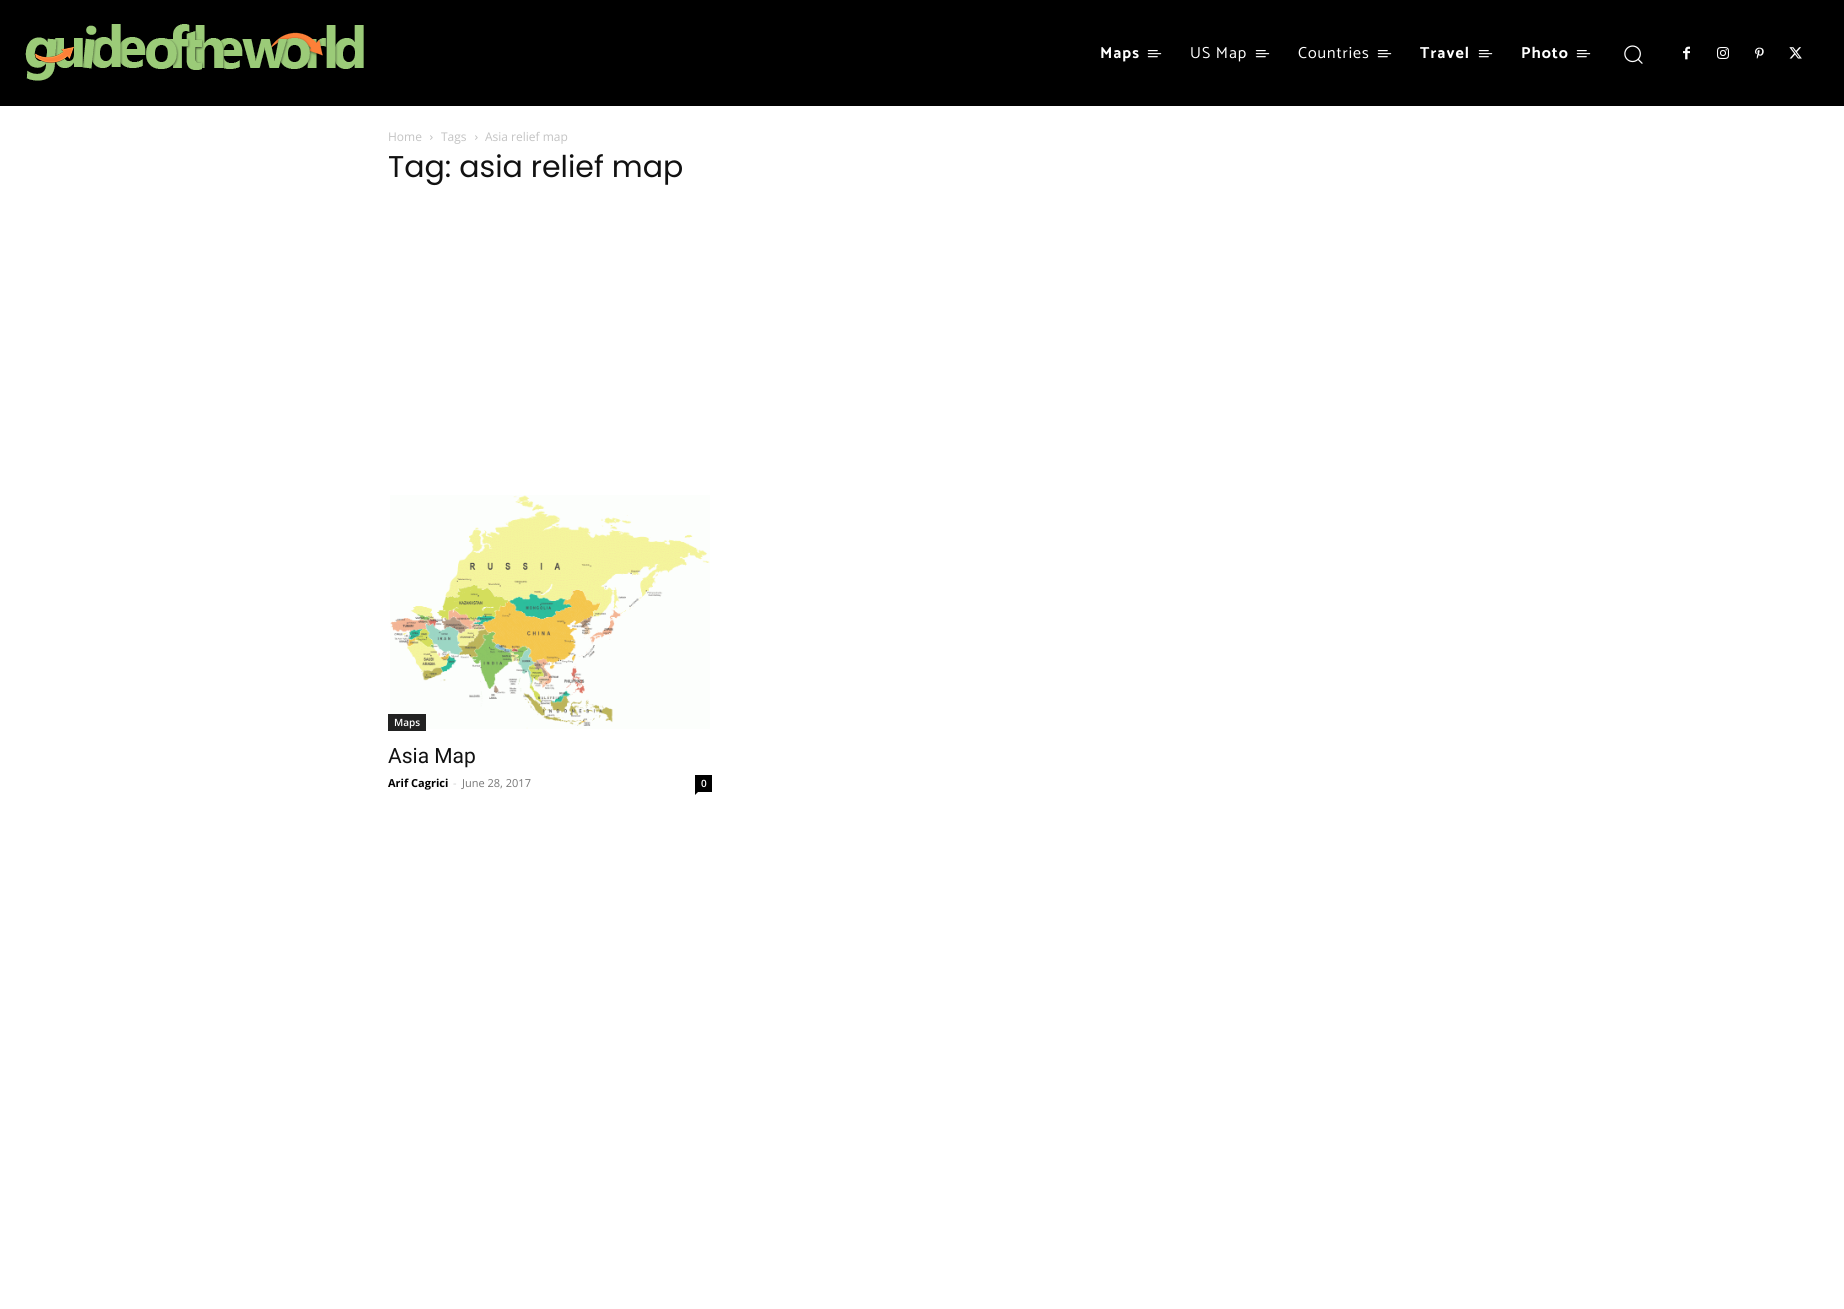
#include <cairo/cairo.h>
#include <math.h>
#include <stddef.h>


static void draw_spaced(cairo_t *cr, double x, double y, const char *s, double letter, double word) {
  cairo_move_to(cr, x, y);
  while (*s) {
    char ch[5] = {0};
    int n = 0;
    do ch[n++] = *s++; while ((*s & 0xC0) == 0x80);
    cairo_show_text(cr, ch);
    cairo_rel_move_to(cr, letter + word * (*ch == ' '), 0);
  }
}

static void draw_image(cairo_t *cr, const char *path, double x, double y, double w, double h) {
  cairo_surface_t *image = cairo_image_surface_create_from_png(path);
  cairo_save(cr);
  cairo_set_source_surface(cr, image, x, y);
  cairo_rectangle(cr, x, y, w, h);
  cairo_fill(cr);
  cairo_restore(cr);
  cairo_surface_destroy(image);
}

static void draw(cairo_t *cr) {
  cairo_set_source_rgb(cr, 1, 1, 1);
  cairo_paint(cr);
  cairo_set_source_rgb(cr, 0, 0, 0);
  cairo_rectangle(cr, 0, 0, 1844, 106);
  cairo_fill(cr);
  draw_image(cr, "images/1.png", 25, 24, 339, 57);
  draw_image(cr, "images/2.png", 1147, 50, 15, 8);
  draw_image(cr, "images/2.png", 1255, 50, 15, 8);
  draw_image(cr, "images/2.png", 1377, 50, 15, 8);
  draw_image(cr, "images/2.png", 1478, 50, 15, 8);
  draw_image(cr, "images/2.png", 1576, 50, 15, 8);
  draw_image(cr, "images/3.png", 1624, 45, 19, 19);
  draw_image(cr, "images/4.png", 1683, 46, 7, 14);
  draw_image(cr, "images/5.png", 1717, 47, 12, 12);
  draw_image(cr, "images/6.png", 1755, 47, 9, 12);
  draw_image(cr, "images/7.png", 1789, 47, 13, 12);
  draw_image(cr, "images/8.png", 430, 135, 3, 5);
  draw_image(cr, "images/8.png", 475, 135, 3, 5);
  draw_image(cr, "images/9.png", 390, 495, 320, 234);
  cairo_set_source_rgb(cr, 34 / 255.0, 34 / 255.0, 34 / 255.0);
  cairo_rectangle(cr, 388, 714, 38, 17);
  cairo_fill(cr);
  cairo_set_source_rgb(cr, 0, 0, 0);
  cairo_rectangle(cr, 695, 775, 17, 17);
  cairo_fill(cr);
  cairo_new_path(cr);
  cairo_move_to(cr, 695, 792);
  cairo_line_to(cr, 698, 792);
  cairo_line_to(cr, 695, 795);
  cairo_close_path(cr);
  cairo_fill(cr);
  cairo_select_font_face(cr, "Catamaran", CAIRO_FONT_SLANT_NORMAL, CAIRO_FONT_WEIGHT_BOLD);
  cairo_set_font_size(cr, 16);
  cairo_set_source_rgb(cr, 1, 1, 1);
  draw_spaced(cr, 1100, 58, "Maps", 1, 0);
  cairo_select_font_face(cr, "Catamaran", CAIRO_FONT_SLANT_NORMAL, CAIRO_FONT_WEIGHT_NORMAL);
  draw_spaced(cr, 1190, 58, "US Map", 1, 0);
  draw_spaced(cr, 1298, 58, "Countries", 1, 0);
  cairo_select_font_face(cr, "Catamaran", CAIRO_FONT_SLANT_NORMAL, CAIRO_FONT_WEIGHT_BOLD);
  draw_spaced(cr, 1420, 58, "Travel", 1, 0);
  draw_spaced(cr, 1521, 58, "Photo", 1, 0);
  cairo_select_font_face(cr, "Open Sans", CAIRO_FONT_SLANT_NORMAL, CAIRO_FONT_WEIGHT_NORMAL);
  cairo_set_font_size(cr, 12);
  cairo_set_source_rgb(cr, 195 / 255.0, 195 / 255.0, 195 / 255.0);
  cairo_move_to(cr, 388, 141);
  cairo_show_text(cr, "Home");
  cairo_move_to(cr, 441, 141);
  cairo_show_text(cr, "Tags");
  cairo_move_to(cr, 485, 141);
  cairo_show_text(cr, "Asia relief map");
  cairo_select_font_face(cr, "Poppins", CAIRO_FONT_SLANT_NORMAL, CAIRO_FONT_WEIGHT_NORMAL);
  cairo_set_font_size(cr, 30);
  cairo_set_source_rgb(cr, 17 / 255.0, 17 / 255.0, 17 / 255.0);
  cairo_move_to(cr, 388, 177);
  cairo_show_text(cr, "Tag: asia relief map");
  cairo_select_font_face(cr, "Open Sans SemiBold", CAIRO_FONT_SLANT_NORMAL, CAIRO_FONT_WEIGHT_NORMAL);
  cairo_set_font_size(cr, 10);
  cairo_set_source_rgb(cr, 1, 1, 1);
  cairo_move_to(cr, 394, 726);
  cairo_show_text(cr, "Maps");
  cairo_select_font_face(cr, "Roboto", CAIRO_FONT_SLANT_NORMAL, CAIRO_FONT_WEIGHT_NORMAL);
  cairo_set_font_size(cr, 21);
  cairo_set_source_rgb(cr, 17 / 255.0, 17 / 255.0, 17 / 255.0);
  cairo_move_to(cr, 388, 763);
  cairo_show_text(cr, "Asia Map");
  cairo_select_font_face(cr, "Open Sans", CAIRO_FONT_SLANT_NORMAL, CAIRO_FONT_WEIGHT_BOLD);
  cairo_set_font_size(cr, 11);
  cairo_set_source_rgb(cr, 0, 0, 0);
  cairo_move_to(cr, 388, 787);
  cairo_show_text(cr, "Arif Cagrici");
  cairo_select_font_face(cr, "Open Sans", CAIRO_FONT_SLANT_NORMAL, CAIRO_FONT_WEIGHT_NORMAL);
  cairo_set_source_rgb(cr, 204 / 255.0, 204 / 255.0, 204 / 255.0);
  cairo_move_to(cr, 453, 787);
  cairo_show_text(cr, "-");
  cairo_set_source_rgb(cr, 118 / 255.0, 118 / 255.0, 118 / 255.0);
  cairo_move_to(cr, 462, 787);
  cairo_show_text(cr, "June 28, 2017");
  cairo_select_font_face(cr, "Open Sans SemiBold", CAIRO_FONT_SLANT_NORMAL, CAIRO_FONT_WEIGHT_NORMAL);
  cairo_set_font_size(cr, 10);
  cairo_set_source_rgb(cr, 1, 1, 1);
  cairo_move_to(cr, 701, 787);
  cairo_show_text(cr, "0");
}

int main(void) {
  cairo_surface_t *surface = cairo_image_surface_create(CAIRO_FORMAT_RGB24, 1844, 1309);
  cairo_t *cr = cairo_create(surface);
  cairo_font_options_t *options = cairo_font_options_create();
  cairo_font_options_set_hint_metrics(options, CAIRO_HINT_METRICS_OFF);
  cairo_font_options_set_hint_style(options, CAIRO_HINT_STYLE_NONE);
  cairo_set_font_options(cr, options);
  cairo_set_miter_limit(cr, 4);
  draw(cr);
  cairo_surface_write_to_png(surface, "out.png");
  cairo_font_options_destroy(options);
  cairo_destroy(cr);
  cairo_surface_destroy(surface);
  return 0;
}
